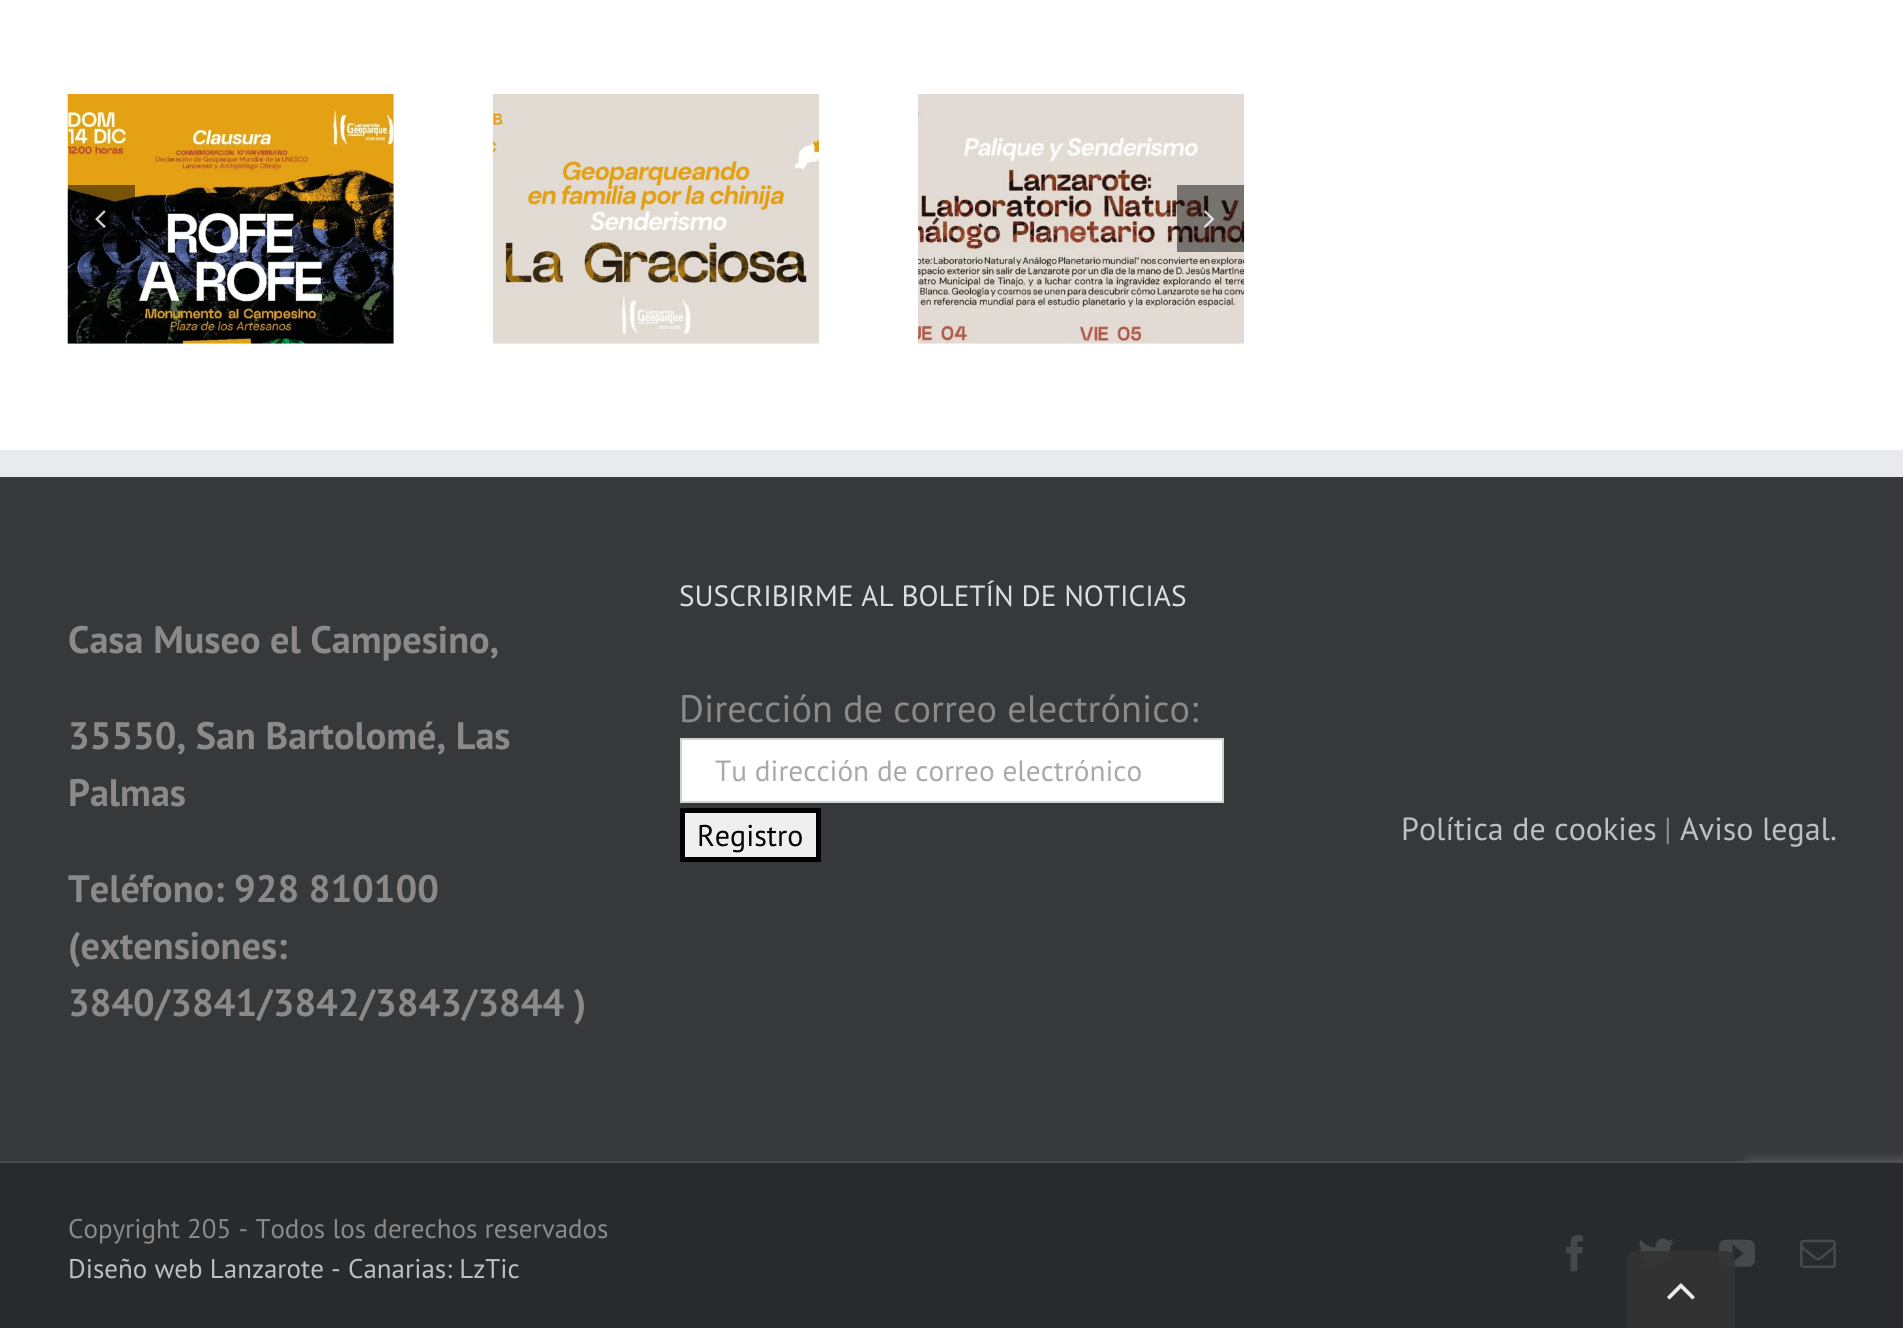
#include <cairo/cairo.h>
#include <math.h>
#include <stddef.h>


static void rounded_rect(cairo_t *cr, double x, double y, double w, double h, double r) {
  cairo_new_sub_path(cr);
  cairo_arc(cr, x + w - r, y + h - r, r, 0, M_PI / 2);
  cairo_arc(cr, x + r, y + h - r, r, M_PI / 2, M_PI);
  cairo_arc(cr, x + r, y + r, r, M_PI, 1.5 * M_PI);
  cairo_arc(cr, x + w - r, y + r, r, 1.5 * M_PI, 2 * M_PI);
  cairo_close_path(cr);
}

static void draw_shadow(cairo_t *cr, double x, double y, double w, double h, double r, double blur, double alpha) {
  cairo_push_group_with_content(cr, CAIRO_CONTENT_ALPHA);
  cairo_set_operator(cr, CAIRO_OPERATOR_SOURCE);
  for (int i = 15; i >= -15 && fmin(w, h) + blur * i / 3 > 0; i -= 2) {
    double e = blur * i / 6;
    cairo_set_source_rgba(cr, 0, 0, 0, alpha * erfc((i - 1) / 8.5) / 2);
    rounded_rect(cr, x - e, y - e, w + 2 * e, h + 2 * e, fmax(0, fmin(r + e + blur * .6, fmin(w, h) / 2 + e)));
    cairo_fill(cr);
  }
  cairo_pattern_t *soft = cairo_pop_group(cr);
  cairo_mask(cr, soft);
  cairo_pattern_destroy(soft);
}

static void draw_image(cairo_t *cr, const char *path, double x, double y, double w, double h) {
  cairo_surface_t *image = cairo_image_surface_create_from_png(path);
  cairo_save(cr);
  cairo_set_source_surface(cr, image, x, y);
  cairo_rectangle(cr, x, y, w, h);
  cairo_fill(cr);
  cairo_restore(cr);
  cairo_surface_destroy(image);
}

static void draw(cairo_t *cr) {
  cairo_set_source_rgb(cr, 1, 1, 1);
  cairo_paint(cr);
  draw_image(cr, "images/1.png", 67, 94, 327, 250);
  draw_image(cr, "images/2.png", 492, 94, 327, 250);
  draw_image(cr, "images/3.png", 918, 94, 327, 250);
  cairo_set_source_rgba(cr, 0, 0, 0, 0.48);
  cairo_rectangle(cr, 68, 185, 67, 67);
  cairo_fill(cr);
  draw_image(cr, "images/4.png", 95, 210, 11, 18);
  cairo_rectangle(cr, 1177, 185, 67, 67);
  cairo_fill(cr);
  draw_image(cr, "images/5.png", 1204, 210, 11, 18);
  cairo_set_source_rgb(cr, 54 / 255.0, 56 / 255.0, 57 / 255.0);
  cairo_rectangle(cr, 0, 477, 1903, 684);
  cairo_fill(cr);
  cairo_set_source_rgb(cr, 233 / 255.0, 234 / 255.0, 238 / 255.0);
  cairo_rectangle(cr, 0, 450, 1903, 27);
  cairo_fill(cr);
  cairo_set_source_rgb(cr, 1, 1, 1);
  cairo_rectangle(cr, 681, 739, 542, 63);
  cairo_fill_preserve(cr);
  cairo_set_source_rgb(cr, 210 / 255.0, 210 / 255.0, 210 / 255.0);
  cairo_stroke(cr);
  cairo_set_source_rgb(cr, 239 / 255.0, 239 / 255.0, 239 / 255.0);
  cairo_rectangle(cr, 682.5, 810.5, 136, 49);
  cairo_fill_preserve(cr);
  cairo_set_source_rgb(cr, 0, 0, 0);
  cairo_set_line_width(cr, 5);
  cairo_stroke(cr);
  cairo_set_source_rgb(cr, 128 / 255.0, 128 / 255.0, 128 / 255.0);
  draw_shadow(cr, 1746, 1163, 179, 135, 5, 5.5, 1);
  cairo_set_source_rgb(cr, 40 / 255.0, 42 / 255.0, 43 / 255.0);
  cairo_rectangle(cr, 0, 1163, 1903, 165);
  cairo_fill(cr);
  cairo_set_source_rgb(cr, 75 / 255.0, 76 / 255.0, 77 / 255.0);
  cairo_rectangle(cr, 0, 1161, 1903, 2);
  cairo_fill(cr);
  draw_image(cr, "images/6.png", 1566, 1235, 17, 37);
  draw_image(cr, "images/7.png", 1638, 1238, 36, 30);
  draw_image(cr, "images/8.png", 1719, 1239, 36, 28);
  draw_image(cr, "images/9.png", 1800, 1239, 36, 29);
  cairo_set_source_rgba(cr, 51 / 255.0, 51 / 255.0, 51 / 255.0, 0.9);
  cairo_new_path(cr);
  cairo_move_to(cr, 1636, 1251);
  cairo_line_to(cr, 1726, 1251);
  cairo_curve_to(cr, 1731, 1251, 1735, 1255, 1735, 1260);
  cairo_line_to(cr, 1735, 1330);
  cairo_line_to(cr, 1627, 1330);
  cairo_line_to(cr, 1627, 1260);
  cairo_curve_to(cr, 1627, 1255, 1631, 1251, 1636, 1251);
  cairo_close_path(cr);
  cairo_fill(cr);
  draw_image(cr, "images/10.png", 1667, 1283, 28, 17);
  cairo_select_font_face(cr, "PT Sans", CAIRO_FONT_SLANT_NORMAL, CAIRO_FONT_WEIGHT_BOLD);
  cairo_set_font_size(cr, 38.25);
  cairo_set_source_rgb(cr, 140 / 255.0, 137 / 255.0, 137 / 255.0);
  cairo_move_to(cr, 68, 653);
  cairo_show_text(cr, "Casa Museo el Campesino,");
  cairo_move_to(cr, 68, 749);
  cairo_show_text(cr, "35550, San Bartolomé, Las");
  cairo_move_to(cr, 68, 806);
  cairo_show_text(cr, "Palmas");
  cairo_move_to(cr, 68, 902);
  cairo_show_text(cr, "Teléfono: 928 810100");
  cairo_move_to(cr, 68, 959);
  cairo_show_text(cr, "(extensiones:");
  cairo_move_to(cr, 68, 1016);
  cairo_show_text(cr, "3840/3841/3842/3843/3844 )");
  cairo_select_font_face(cr, "PT Sans", CAIRO_FONT_SLANT_NORMAL, CAIRO_FONT_WEIGHT_NORMAL);
  cairo_set_font_size(cr, 29.25);
  cairo_set_source_rgb(cr, 221 / 255.0, 221 / 255.0, 221 / 255.0);
  cairo_move_to(cr, 679, 606);
  cairo_show_text(cr, "SUSCRIBIRME AL BOLETÍN DE NOTICIAS");
  cairo_set_font_size(cr, 38.25);
  cairo_set_source_rgb(cr, 140 / 255.0, 137 / 255.0, 137 / 255.0);
  cairo_move_to(cr, 679, 722);
  cairo_show_text(cr, "Dirección de correo electrónico:");
  cairo_set_font_size(cr, 29.25);
  cairo_set_source_rgb(cr, 170 / 255.0, 169 / 255.0, 169 / 255.0);
  cairo_move_to(cr, 715, 781);
  cairo_show_text(cr, "Tu dirección de correo electrónico");
  cairo_set_font_size(cr, 30);
  cairo_set_source_rgb(cr, 0, 0, 0);
  cairo_move_to(cr, 697, 846);
  cairo_show_text(cr, "Registro");
  cairo_set_font_size(cr, 32);
  cairo_set_source_rgb(cr, 191 / 255.0, 191 / 255.0, 191 / 255.0);
  cairo_move_to(cr, 1401, 840);
  cairo_show_text(cr, "Política de cookies");
  cairo_set_source_rgb(cr, 140 / 255.0, 137 / 255.0, 137 / 255.0);
  cairo_move_to(cr, 1664, 840);
  cairo_show_text(cr, "|");
  cairo_set_source_rgb(cr, 191 / 255.0, 191 / 255.0, 191 / 255.0);
  cairo_move_to(cr, 1680, 840);
  cairo_show_text(cr, "Aviso legal.");
  cairo_set_font_size(cr, 27);
  cairo_set_source_rgb(cr, 140 / 255.0, 137 / 255.0, 137 / 255.0);
  cairo_move_to(cr, 68, 1238);
  cairo_show_text(cr, "Copyright 205 - Todos los derechos reservados");
  cairo_set_source_rgb(cr, 191 / 255.0, 191 / 255.0, 191 / 255.0);
  cairo_move_to(cr, 68, 1278);
  cairo_show_text(cr, "Diseño web Lanzarote - Canarias: LzTic");
}

int main(void) {
  cairo_surface_t *surface = cairo_image_surface_create(CAIRO_FORMAT_RGB24, 1903, 1328);
  cairo_t *cr = cairo_create(surface);
  cairo_font_options_t *options = cairo_font_options_create();
  cairo_font_options_set_hint_metrics(options, CAIRO_HINT_METRICS_OFF);
  cairo_font_options_set_hint_style(options, CAIRO_HINT_STYLE_NONE);
  cairo_set_font_options(cr, options);
  cairo_set_miter_limit(cr, 4);
  draw(cr);
  cairo_surface_write_to_png(surface, "out.png");
  cairo_font_options_destroy(options);
  cairo_destroy(cr);
  cairo_surface_destroy(surface);
  return 0;
}
